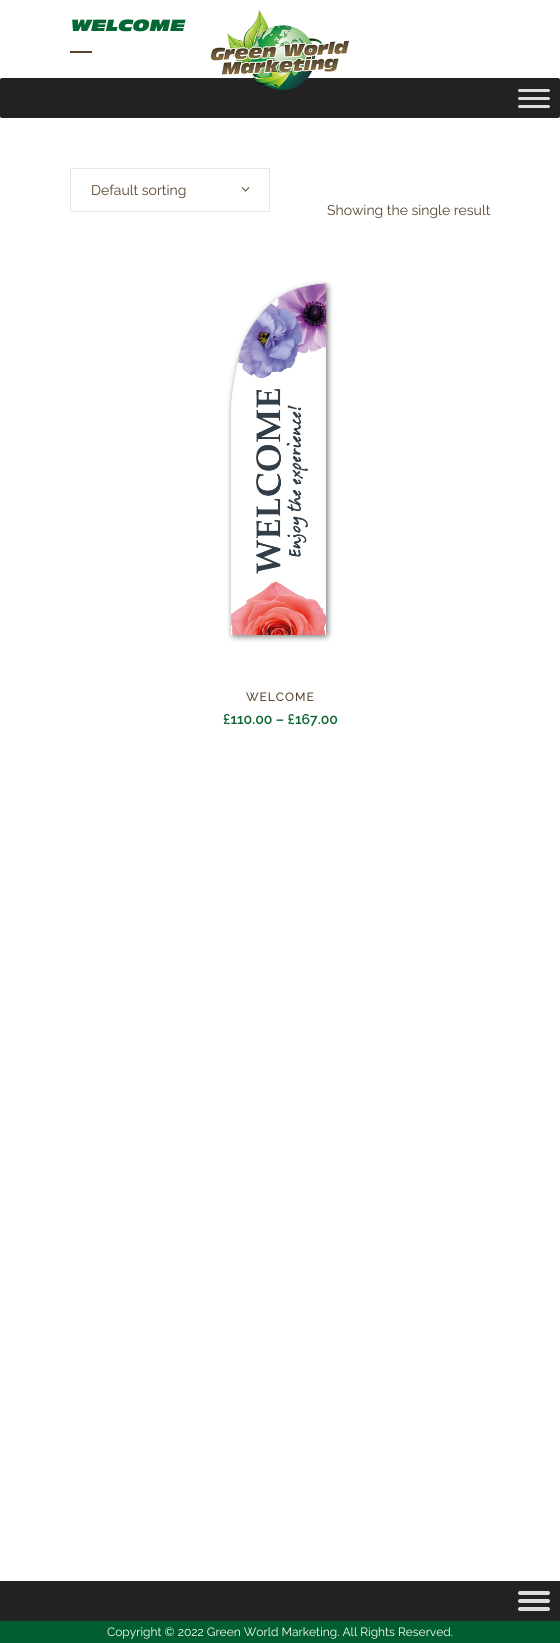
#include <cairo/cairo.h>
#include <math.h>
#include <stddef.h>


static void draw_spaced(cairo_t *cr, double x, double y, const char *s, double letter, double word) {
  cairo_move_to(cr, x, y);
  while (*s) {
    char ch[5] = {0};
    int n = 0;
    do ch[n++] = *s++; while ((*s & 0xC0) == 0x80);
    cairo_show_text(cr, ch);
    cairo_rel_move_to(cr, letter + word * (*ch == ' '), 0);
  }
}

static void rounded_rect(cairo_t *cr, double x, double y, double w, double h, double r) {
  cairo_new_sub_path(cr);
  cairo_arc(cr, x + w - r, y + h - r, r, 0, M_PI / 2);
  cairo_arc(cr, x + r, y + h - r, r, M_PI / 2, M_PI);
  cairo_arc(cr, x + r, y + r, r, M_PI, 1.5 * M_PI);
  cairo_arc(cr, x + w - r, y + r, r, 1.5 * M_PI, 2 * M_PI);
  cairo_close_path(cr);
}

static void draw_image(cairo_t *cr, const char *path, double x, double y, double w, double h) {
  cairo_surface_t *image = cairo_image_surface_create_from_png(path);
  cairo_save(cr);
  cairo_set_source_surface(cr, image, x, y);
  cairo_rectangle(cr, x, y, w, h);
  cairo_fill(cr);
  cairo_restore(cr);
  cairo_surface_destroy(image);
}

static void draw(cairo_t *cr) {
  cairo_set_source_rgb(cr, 1, 1, 1);
  cairo_paint(cr);
  cairo_set_source_rgb(cr, 34 / 255.0, 34 / 255.0, 34 / 255.0);
  rounded_rect(cr, 0, 78, 560, 40, 2);
  cairo_fill(cr);
  draw_image(cr, "images/1.png", 210, 10, 140, 80);
  cairo_set_source_rgb(cr, 88 / 255.0, 68 / 255.0, 47 / 255.0);
  cairo_rectangle(cr, 70, 51, 22, 2);
  cairo_fill(cr);
  cairo_set_source_rgb(cr, 221 / 255.0, 221 / 255.0, 221 / 255.0);
  rounded_rect(cr, 518, 89, 32, 3, 1.5);
  cairo_fill(cr);
  rounded_rect(cr, 518, 97, 32, 3, 1.5);
  cairo_fill(cr);
  rounded_rect(cr, 518, 105, 32, 3, 1.5);
  cairo_fill(cr);
  cairo_rectangle(cr, 70.5, 168.5, 199, 43);
  cairo_set_source_rgb(cr, 230 / 255.0, 230 / 255.0, 230 / 255.0);
  cairo_set_line_width(cr, 1);
  cairo_stroke(cr);
  draw_image(cr, "images/2.png", 241, 187, 9, 5);
  draw_image(cr, "images/3.png", 227, 280, 107, 362);
  cairo_set_source_rgb(cr, 27 / 255.0, 27 / 255.0, 27 / 255.0);
  cairo_rectangle(cr, 0, 1581, 560, 40);
  cairo_fill(cr);
  cairo_set_source_rgb(cr, 34 / 255.0, 34 / 255.0, 34 / 255.0);
  rounded_rect(cr, 0, 1581, 560, 40, 2);
  cairo_fill(cr);
  cairo_set_source_rgb(cr, 221 / 255.0, 221 / 255.0, 221 / 255.0);
  rounded_rect(cr, 518, 1591, 32, 4, 2);
  cairo_fill(cr);
  rounded_rect(cr, 518, 1599, 32, 4, 2);
  cairo_fill(cr);
  rounded_rect(cr, 518, 1607, 32, 4, 2);
  cairo_fill(cr);
  cairo_set_source_rgb(cr, 0, 94 / 255.0, 48 / 255.0);
  cairo_rectangle(cr, 0, 1621, 560, 22);
  cairo_fill(cr);
  cairo_select_font_face(cr, "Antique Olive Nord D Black", CAIRO_FONT_SLANT_ITALIC, CAIRO_FONT_WEIGHT_NORMAL);
  cairo_set_font_size(cr, 17);
  cairo_set_source_rgb(cr, 5 / 255.0, 103 / 255.0, 52 / 255.0);
  cairo_move_to(cr, 70, 31);
  cairo_show_text(cr, "WELCOME");
  cairo_select_font_face(cr, "Raleway", CAIRO_FONT_SLANT_NORMAL, CAIRO_FONT_WEIGHT_NORMAL);
  cairo_set_font_size(cr, 14);
  cairo_set_source_rgb(cr, 88 / 255.0, 68 / 255.0, 47 / 255.0);
  cairo_move_to(cr, 91, 195);
  cairo_show_text(cr, "Default sorting");
  cairo_move_to(cr, 327, 215);
  cairo_show_text(cr, "Showing the single result");
  cairo_select_font_face(cr, "Raleway Medium", CAIRO_FONT_SLANT_NORMAL, CAIRO_FONT_WEIGHT_NORMAL);
  cairo_set_font_size(cr, 12);
  draw_spaced(cr, 246, 701, "WELCOME", 1, 0);
  cairo_select_font_face(cr, "Raleway SemiBold", CAIRO_FONT_SLANT_NORMAL, CAIRO_FONT_WEIGHT_NORMAL);
  cairo_set_font_size(cr, 14);
  cairo_set_source_rgb(cr, 14 / 255.0, 102 / 255.0, 54 / 255.0);
  cairo_move_to(cr, 223, 724);
  cairo_show_text(cr, "£110.00 – £167.00");
  cairo_select_font_face(cr, "Raleway", CAIRO_FONT_SLANT_NORMAL, CAIRO_FONT_WEIGHT_NORMAL);
  cairo_set_font_size(cr, 12);
  cairo_set_source_rgb(cr, 1, 1, 1);
  cairo_move_to(cr, 107, 1636);
  cairo_show_text(cr, "Copyright © 2022 Green World Marketing. All Rights Reserved.");
}

int main(void) {
  cairo_surface_t *surface = cairo_image_surface_create(CAIRO_FORMAT_RGB24, 560, 1643);
  cairo_t *cr = cairo_create(surface);
  cairo_font_options_t *options = cairo_font_options_create();
  cairo_font_options_set_hint_metrics(options, CAIRO_HINT_METRICS_OFF);
  cairo_font_options_set_hint_style(options, CAIRO_HINT_STYLE_NONE);
  cairo_set_font_options(cr, options);
  cairo_set_miter_limit(cr, 4);
  draw(cr);
  cairo_surface_write_to_png(surface, "out.png");
  cairo_font_options_destroy(options);
  cairo_destroy(cr);
  cairo_surface_destroy(surface);
  return 0;
}
